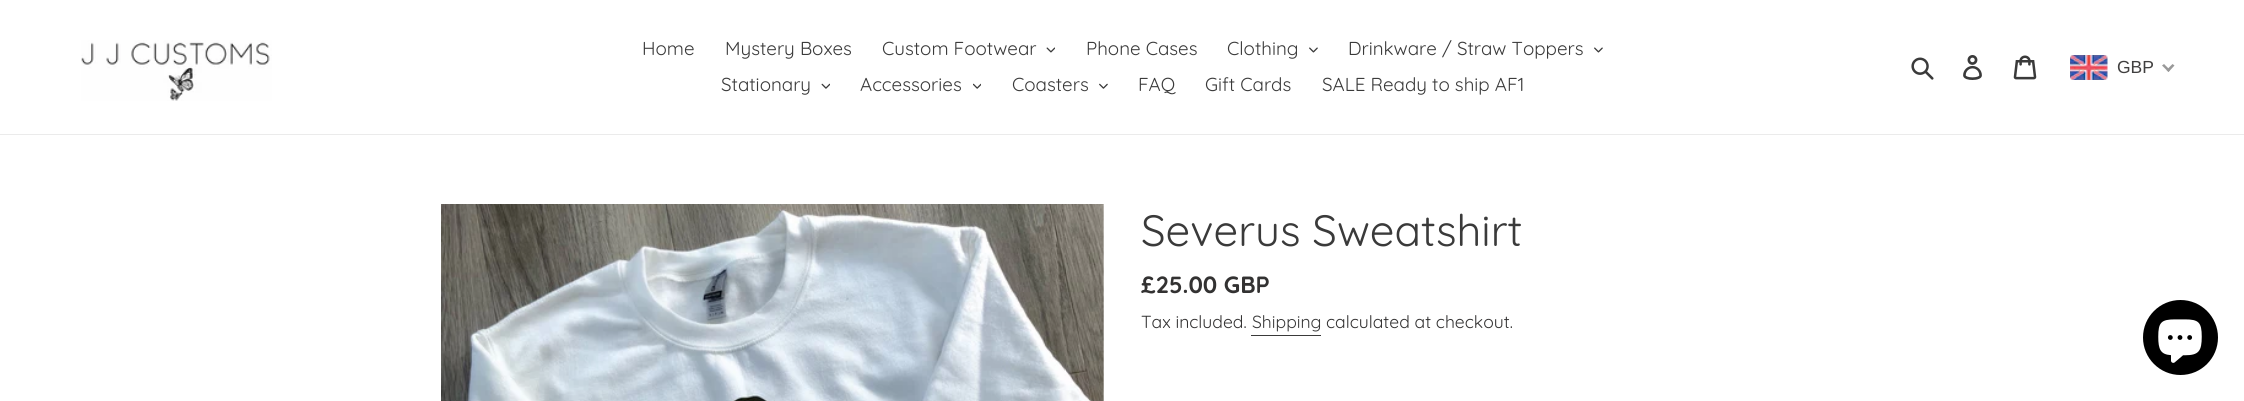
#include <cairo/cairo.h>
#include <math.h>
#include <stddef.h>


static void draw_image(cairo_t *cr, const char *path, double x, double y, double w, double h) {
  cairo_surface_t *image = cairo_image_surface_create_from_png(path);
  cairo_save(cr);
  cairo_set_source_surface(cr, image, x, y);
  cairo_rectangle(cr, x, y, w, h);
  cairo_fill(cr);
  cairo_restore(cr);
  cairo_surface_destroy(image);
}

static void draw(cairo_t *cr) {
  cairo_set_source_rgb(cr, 1, 1, 1);
  cairo_paint(cr);
  cairo_set_source_rgb(cr, 235 / 255.0, 235 / 255.0, 235 / 255.0);
  cairo_rectangle(cr, 0, 134, 2244, 1);
  cairo_fill(cr);
  draw_image(cr, "images/1.png", 81, 40, 191, 61);
  draw_image(cr, "images/2.png", 1046, 47, 9, 6);
  draw_image(cr, "images/3.png", 1309, 47, 9, 6);
  draw_image(cr, "images/3.png", 1594, 47, 9, 6);
  draw_image(cr, "images/4.png", 821, 83, 9, 6);
  draw_image(cr, "images/5.png", 973, 83, 8, 6);
  draw_image(cr, "images/6.png", 1099, 83, 9, 6);
  draw_image(cr, "images/7.png", 1911, 57, 23, 23);
  draw_image(cr, "images/8.png", 1963, 55, 19, 25);
  draw_image(cr, "images/9.png", 2013, 55, 24, 25);
  draw_image(cr, "images/10.png", 2070, 55, 38, 25);
  cairo_set_source_rgb(cr, 153 / 255.0, 153 / 255.0, 153 / 255.0);
  cairo_new_path(cr);
  cairo_move_to(cr, 2172.5, 64);
  cairo_line_to(cr, 2174.5, 65.5);
  cairo_line_to(cr, 2168.5, 72);
  cairo_line_to(cr, 2166.5, 70);
  cairo_close_path(cr);
  cairo_fill(cr);
  cairo_new_path(cr);
  cairo_move_to(cr, 2164, 64);
  cairo_line_to(cr, 2170, 70);
  cairo_line_to(cr, 2168.5, 72);
  cairo_line_to(cr, 2162, 65.5);
  cairo_close_path(cr);
  cairo_fill(cr);
  draw_image(cr, "images/11.png", 441, 204, 663, 197);
  cairo_set_source_rgb(cr, 58 / 255.0, 58 / 255.0, 58 / 255.0);
  cairo_rectangle(cr, 1251, 335, 70, 1);
  cairo_fill(cr);
  cairo_set_source_rgb(cr, 0, 0, 0);
  cairo_arc(cr, 2180.5, 337.5, 37.5, 0, 2 * M_PI);
  cairo_fill(cr);
  draw_image(cr, "images/12.png", 2158, 319, 44, 44);
  cairo_select_font_face(cr, "Quicksand", CAIRO_FONT_SLANT_NORMAL, CAIRO_FONT_WEIGHT_NORMAL);
  cairo_set_font_size(cr, 18.75);
  cairo_set_source_rgb(cr, 58 / 255.0, 58 / 255.0, 58 / 255.0);
  cairo_move_to(cr, 642, 55);
  cairo_show_text(cr, "Home");
  cairo_move_to(cr, 725, 55);
  cairo_show_text(cr, "Mystery Boxes");
  cairo_move_to(cr, 882, 55);
  cairo_show_text(cr, "Custom Footwear");
  cairo_move_to(cr, 1086, 55);
  cairo_show_text(cr, "Phone Cases");
  cairo_move_to(cr, 1227, 55);
  cairo_show_text(cr, "Clothing");
  cairo_move_to(cr, 1348, 55);
  cairo_show_text(cr, "Drinkware / Straw Toppers");
  cairo_move_to(cr, 721, 91);
  cairo_show_text(cr, "Stationary");
  cairo_move_to(cr, 860, 91);
  cairo_show_text(cr, "Accessories");
  cairo_move_to(cr, 1012, 91);
  cairo_show_text(cr, "Coasters");
  cairo_move_to(cr, 1138, 91);
  cairo_show_text(cr, "FAQ");
  cairo_move_to(cr, 1205, 91);
  cairo_show_text(cr, "Gift Cards");
  cairo_move_to(cr, 1322, 91);
  cairo_show_text(cr, "SALE Ready to ship AF1");
  cairo_select_font_face(cr, "Liberation Sans", CAIRO_FONT_SLANT_NORMAL, CAIRO_FONT_WEIGHT_NORMAL);
  cairo_set_font_size(cr, 17.5);
  cairo_set_source_rgb(cr, 64 / 255.0, 63 / 255.0, 63 / 255.0);
  cairo_move_to(cr, 2117, 73);
  cairo_show_text(cr, "GBP");
  cairo_select_font_face(cr, "Quicksand", CAIRO_FONT_SLANT_NORMAL, CAIRO_FONT_WEIGHT_NORMAL);
  cairo_set_font_size(cr, 43.75);
  cairo_set_source_rgb(cr, 58 / 255.0, 58 / 255.0, 58 / 255.0);
  cairo_move_to(cr, 1141, 246);
  cairo_show_text(cr, "Severus Sweatshirt");
  cairo_select_font_face(cr, "Quicksand", CAIRO_FONT_SLANT_NORMAL, CAIRO_FONT_WEIGHT_BOLD);
  cairo_set_font_size(cr, 23.5);
  cairo_set_source_rgb(cr, 51 / 255.0, 50 / 255.0, 50 / 255.0);
  cairo_move_to(cr, 1141, 293);
  cairo_show_text(cr, "£25.00 GBP");
  cairo_select_font_face(cr, "Quicksand", CAIRO_FONT_SLANT_NORMAL, CAIRO_FONT_WEIGHT_NORMAL);
  cairo_set_font_size(cr, 17.5);
  cairo_move_to(cr, 1141, 328);
  cairo_show_text(cr, "Tax included.");
  cairo_set_source_rgb(cr, 58 / 255.0, 58 / 255.0, 58 / 255.0);
  cairo_move_to(cr, 1252, 328);
  cairo_show_text(cr, "Shipping");
  cairo_set_source_rgb(cr, 51 / 255.0, 50 / 255.0, 50 / 255.0);
  cairo_move_to(cr, 1326, 328);
  cairo_show_text(cr, "calculated at checkout.");
}

int main(void) {
  cairo_surface_t *surface = cairo_image_surface_create(CAIRO_FORMAT_RGB24, 2244, 401);
  cairo_t *cr = cairo_create(surface);
  cairo_font_options_t *options = cairo_font_options_create();
  cairo_font_options_set_hint_metrics(options, CAIRO_HINT_METRICS_OFF);
  cairo_font_options_set_hint_style(options, CAIRO_HINT_STYLE_NONE);
  cairo_set_font_options(cr, options);
  cairo_set_miter_limit(cr, 4);
  draw(cr);
  cairo_surface_write_to_png(surface, "out.png");
  cairo_font_options_destroy(options);
  cairo_destroy(cr);
  cairo_surface_destroy(surface);
  return 0;
}
